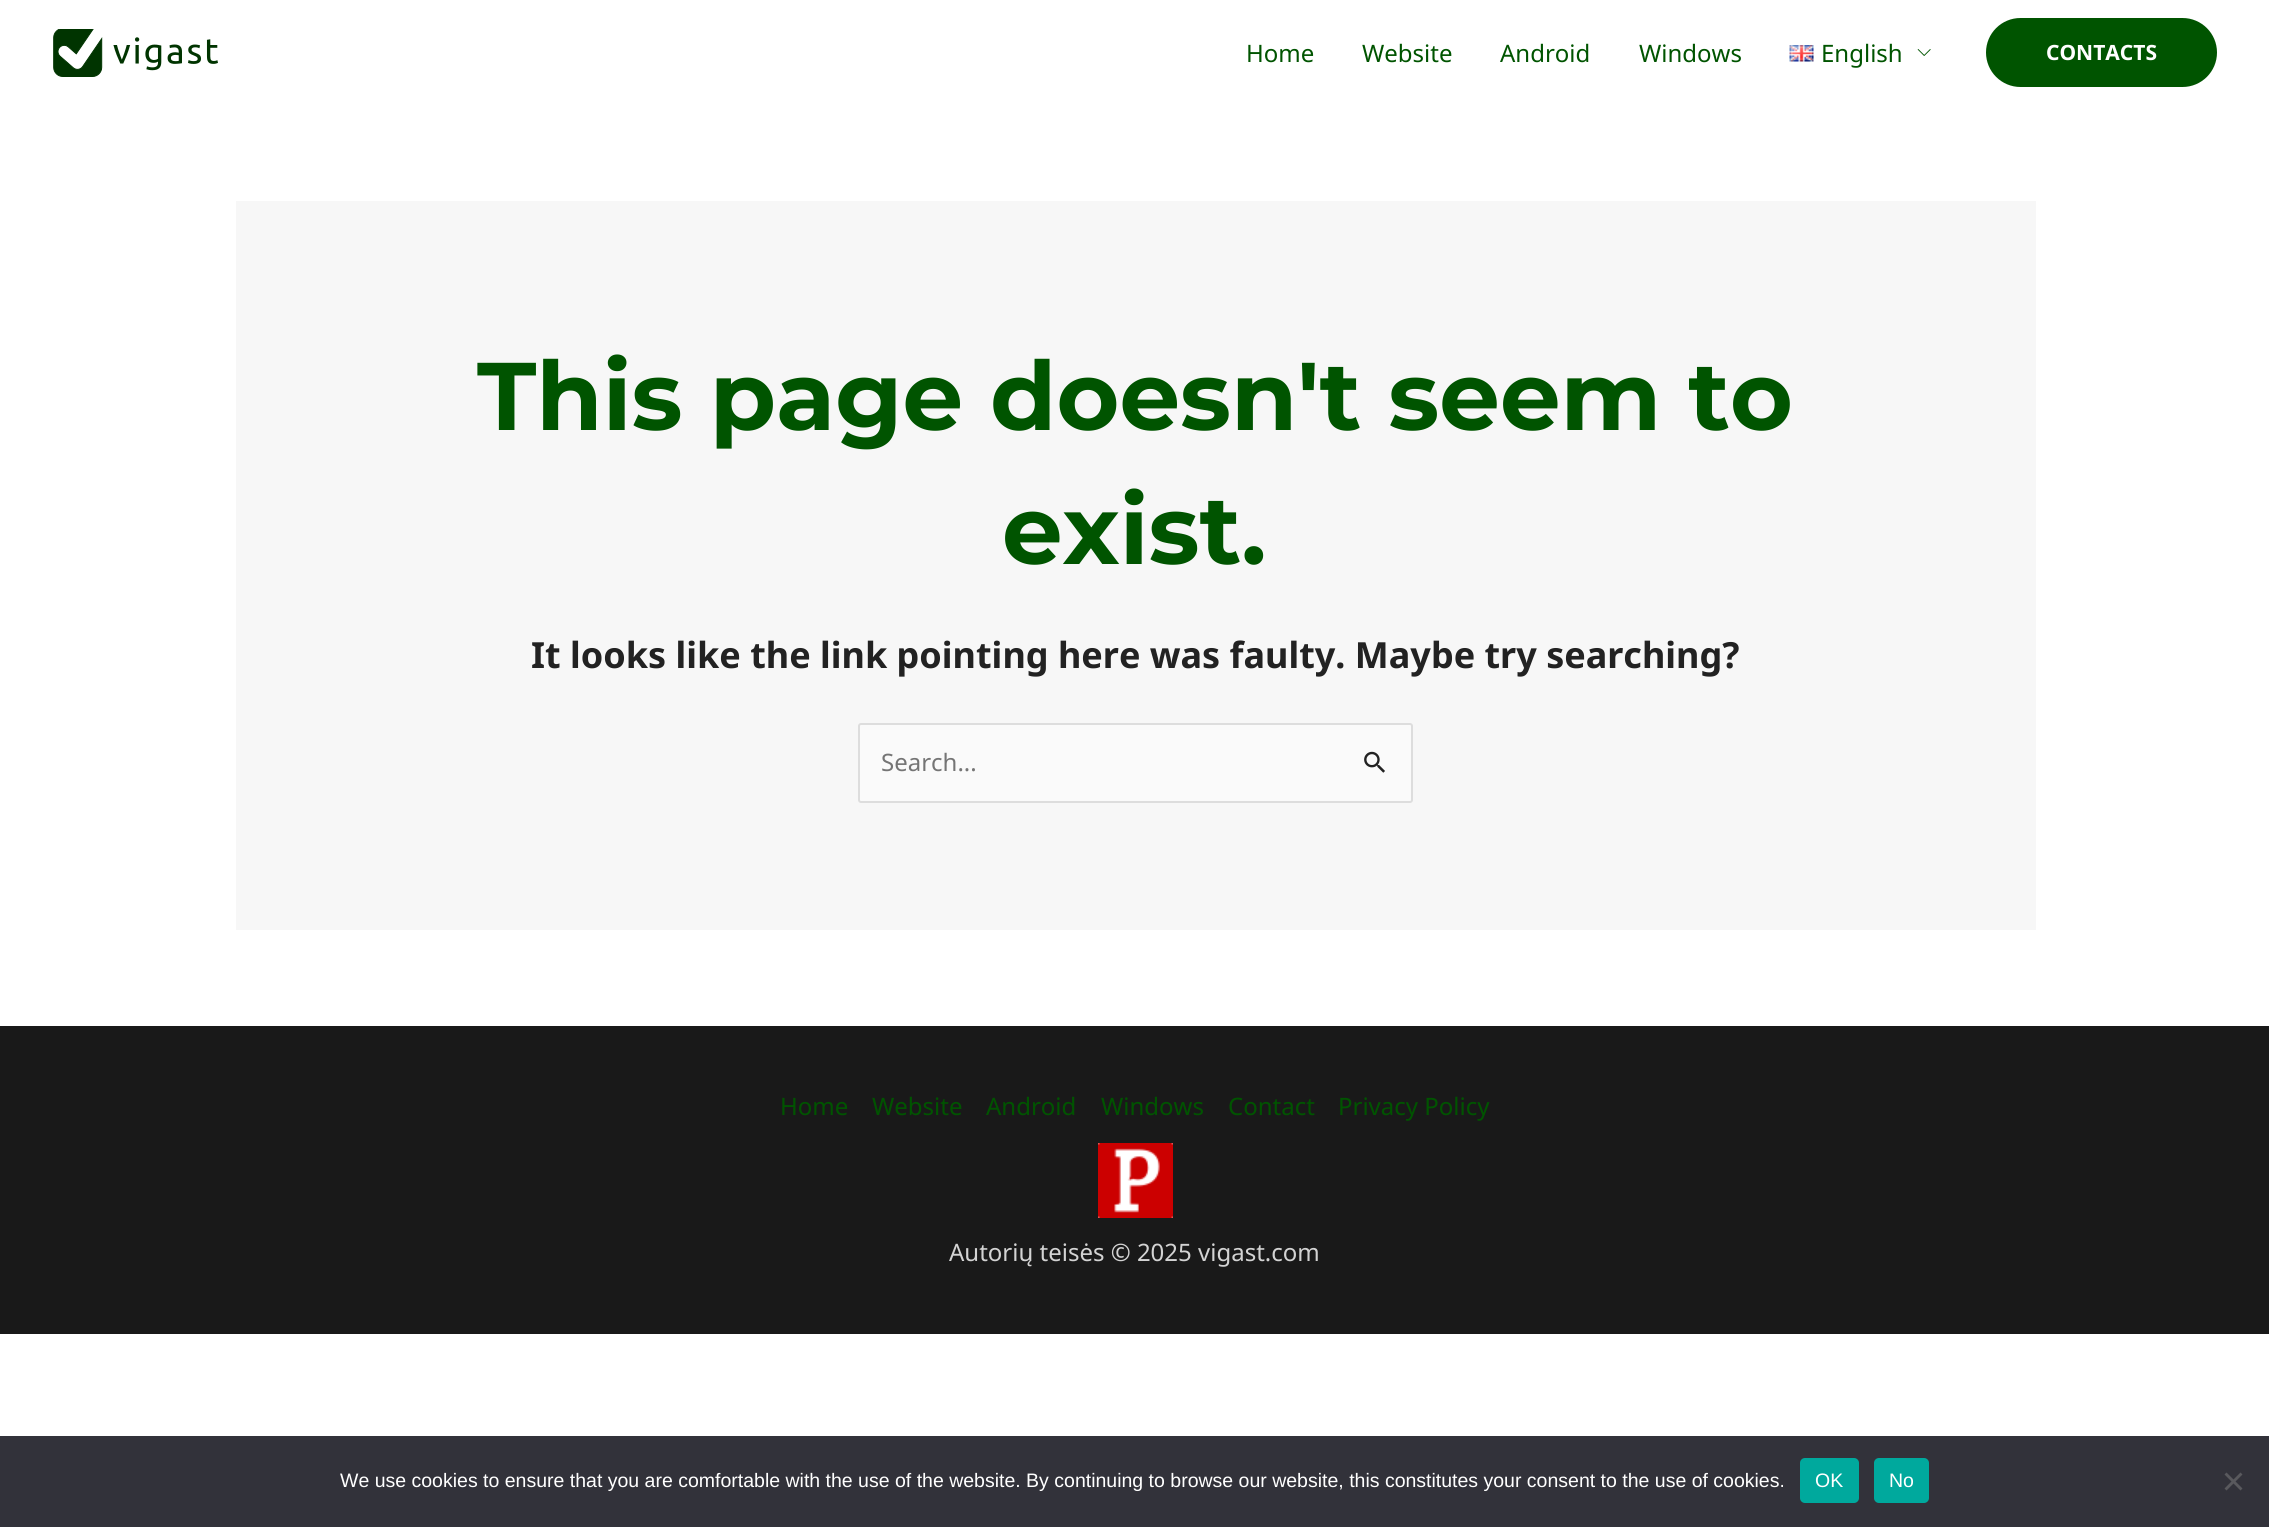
#include <cairo/cairo.h>
#include <math.h>
#include <stddef.h>


static void rounded_rect(cairo_t *cr, double x, double y, double w, double h, double r) {
  cairo_new_sub_path(cr);
  cairo_arc(cr, x + w - r, y + h - r, r, 0, M_PI / 2);
  cairo_arc(cr, x + r, y + h - r, r, M_PI / 2, M_PI);
  cairo_arc(cr, x + r, y + r, r, M_PI, 1.5 * M_PI);
  cairo_arc(cr, x + w - r, y + r, r, 1.5 * M_PI, 2 * M_PI);
  cairo_close_path(cr);
}

static void draw_image(cairo_t *cr, const char *path, double x, double y, double w, double h) {
  cairo_surface_t *image = cairo_image_surface_create_from_png(path);
  cairo_save(cr);
  cairo_set_source_surface(cr, image, x, y);
  cairo_rectangle(cr, x, y, w, h);
  cairo_fill(cr);
  cairo_restore(cr);
  cairo_surface_destroy(image);
}

static void draw(cairo_t *cr) {
  cairo_set_source_rgb(cr, 1, 1, 1);
  cairo_paint(cr);
  draw_image(cr, "images/1.png", 53, 29, 165, 48);
  draw_image(cr, "images/2.png", 1789, 45, 25, 17);
  draw_image(cr, "images/3.png", 1917, 49, 14, 7);
  cairo_set_source_rgb(cr, 0, 84 / 255.0, 0);
  rounded_rect(cr, 1986, 18, 231, 69, 34.5);
  cairo_fill(cr);
  cairo_set_source_rgb(cr, 247 / 255.0, 247 / 255.0, 247 / 255.0);
  cairo_rectangle(cr, 236, 201, 1800, 729);
  cairo_fill(cr);
  cairo_set_source_rgb(cr, 250 / 255.0, 250 / 255.0, 250 / 255.0);
  rounded_rect(cr, 859, 724, 553, 78, 2);
  cairo_fill_preserve(cr);
  cairo_set_source_rgb(cr, 221 / 255.0, 221 / 255.0, 221 / 255.0);
  cairo_stroke(cr);
  draw_image(cr, "images/4.png", 1364, 751, 21, 22);
  cairo_set_source_rgb(cr, 25 / 255.0, 25 / 255.0, 25 / 255.0);
  cairo_rectangle(cr, 0, 1026, 2269, 308);
  cairo_fill(cr);
  draw_image(cr, "images/5.png", 1098, 1143, 75, 75);
  cairo_set_source_rgb(cr, 50 / 255.0, 50 / 255.0, 58 / 255.0);
  cairo_rectangle(cr, 0, 1436, 2269, 91);
  cairo_fill(cr);
  cairo_set_source_rgb(cr, 0, 169 / 255.0, 157 / 255.0);
  rounded_rect(cr, 1800, 1458, 59, 45, 5);
  cairo_fill(cr);
  rounded_rect(cr, 1874, 1458, 55, 45, 5);
  cairo_fill(cr);
  cairo_set_source_rgb(cr, 89 / 255.0, 89 / 255.0, 93 / 255.0);
  cairo_new_path(cr);
  cairo_move_to(cr, 2240.5, 1472.5);
  cairo_line_to(cr, 2242.5, 1474.5);
  cairo_line_to(cr, 2226.5, 1490.5);
  cairo_line_to(cr, 2224.5, 1488.5);
  cairo_close_path(cr);
  cairo_fill(cr);
  cairo_new_path(cr);
  cairo_move_to(cr, 2224.5, 1474.5);
  cairo_line_to(cr, 2226.5, 1472.5);
  cairo_line_to(cr, 2242.5, 1488.5);
  cairo_line_to(cr, 2240.5, 1490.5);
  cairo_close_path(cr);
  cairo_fill(cr);
  cairo_select_font_face(cr, "Noto Sans", CAIRO_FONT_SLANT_NORMAL, CAIRO_FONT_WEIGHT_NORMAL);
  cairo_set_font_size(cr, 24);
  cairo_set_source_rgb(cr, 0, 84 / 255.0, 0);
  cairo_move_to(cr, 1246, 62);
  cairo_show_text(cr, "Home");
  cairo_move_to(cr, 1362, 62);
  cairo_show_text(cr, "Website");
  cairo_move_to(cr, 1500, 62);
  cairo_show_text(cr, "Android");
  cairo_move_to(cr, 1639, 62);
  cairo_show_text(cr, "Windows");
  cairo_move_to(cr, 1821, 62);
  cairo_show_text(cr, "English");
  cairo_select_font_face(cr, "Noto Sans", CAIRO_FONT_SLANT_NORMAL, CAIRO_FONT_WEIGHT_BOLD);
  cairo_set_font_size(cr, 21);
  cairo_set_source_rgb(cr, 1, 1, 1);
  cairo_move_to(cr, 2046, 60);
  cairo_show_text(cr, "CONTACTS");
  cairo_select_font_face(cr, "Montserrat Thin", CAIRO_FONT_SLANT_NORMAL, CAIRO_FONT_WEIGHT_NORMAL);
  cairo_set_font_size(cr, 96);
  cairo_set_source_rgb(cr, 0, 84 / 255.0, 0);
  cairo_move_to(cr, 477, 430);
  cairo_show_text(cr, "This page doesn't seem to");
  cairo_move_to(cr, 1002, 564);
  cairo_show_text(cr, "exist.");
  cairo_select_font_face(cr, "Noto Sans", CAIRO_FONT_SLANT_NORMAL, CAIRO_FONT_WEIGHT_BOLD);
  cairo_set_font_size(cr, 36);
  cairo_set_source_rgb(cr, 34 / 255.0, 34 / 255.0, 34 / 255.0);
  cairo_move_to(cr, 531, 668);
  cairo_show_text(cr, "It looks like the link pointing here was faulty. Maybe try searching?");
  cairo_select_font_face(cr, "Noto Sans", CAIRO_FONT_SLANT_NORMAL, CAIRO_FONT_WEIGHT_NORMAL);
  cairo_set_font_size(cr, 24);
  cairo_set_source_rgb(cr, 117 / 255.0, 117 / 255.0, 117 / 255.0);
  cairo_move_to(cr, 881, 771);
  cairo_show_text(cr, "Search...");
  cairo_set_source_rgb(cr, 0, 84 / 255.0, 0);
  cairo_move_to(cr, 780, 1115);
  cairo_show_text(cr, "Home");
  cairo_move_to(cr, 872, 1115);
  cairo_show_text(cr, "Website");
  cairo_move_to(cr, 986, 1115);
  cairo_show_text(cr, "Android");
  cairo_move_to(cr, 1101, 1115);
  cairo_show_text(cr, "Windows");
  cairo_move_to(cr, 1228, 1115);
  cairo_show_text(cr, "Contact");
  cairo_move_to(cr, 1338, 1115);
  cairo_show_text(cr, "Privacy Policy");
  cairo_set_source_rgb(cr, 211 / 255.0, 211 / 255.0, 211 / 255.0);
  cairo_move_to(cr, 949, 1261);
  cairo_show_text(cr, "Autorių teisės © 2025 vigast.com");
  cairo_select_font_face(cr, "Liberation Sans", CAIRO_FONT_SLANT_NORMAL, CAIRO_FONT_WEIGHT_NORMAL);
  cairo_set_font_size(cr, 19.5);
  cairo_set_source_rgb(cr, 1, 1, 1);
  cairo_move_to(cr, 340, 1487);
  cairo_show_text(cr, "We use cookies to ensure that you are comfortable with the use of the website. By continuing to browse our website, this constitutes your consent to the use of cookies.");
  cairo_move_to(cr, 1815, 1487);
  cairo_show_text(cr, "OK");
  cairo_move_to(cr, 1889, 1487);
  cairo_show_text(cr, "No");
}

int main(void) {
  cairo_surface_t *surface = cairo_image_surface_create(CAIRO_FORMAT_RGB24, 2269, 1527);
  cairo_t *cr = cairo_create(surface);
  cairo_font_options_t *options = cairo_font_options_create();
  cairo_font_options_set_hint_metrics(options, CAIRO_HINT_METRICS_OFF);
  cairo_font_options_set_hint_style(options, CAIRO_HINT_STYLE_NONE);
  cairo_set_font_options(cr, options);
  cairo_set_miter_limit(cr, 4);
  draw(cr);
  cairo_surface_write_to_png(surface, "out.png");
  cairo_font_options_destroy(options);
  cairo_destroy(cr);
  cairo_surface_destroy(surface);
  return 0;
}
